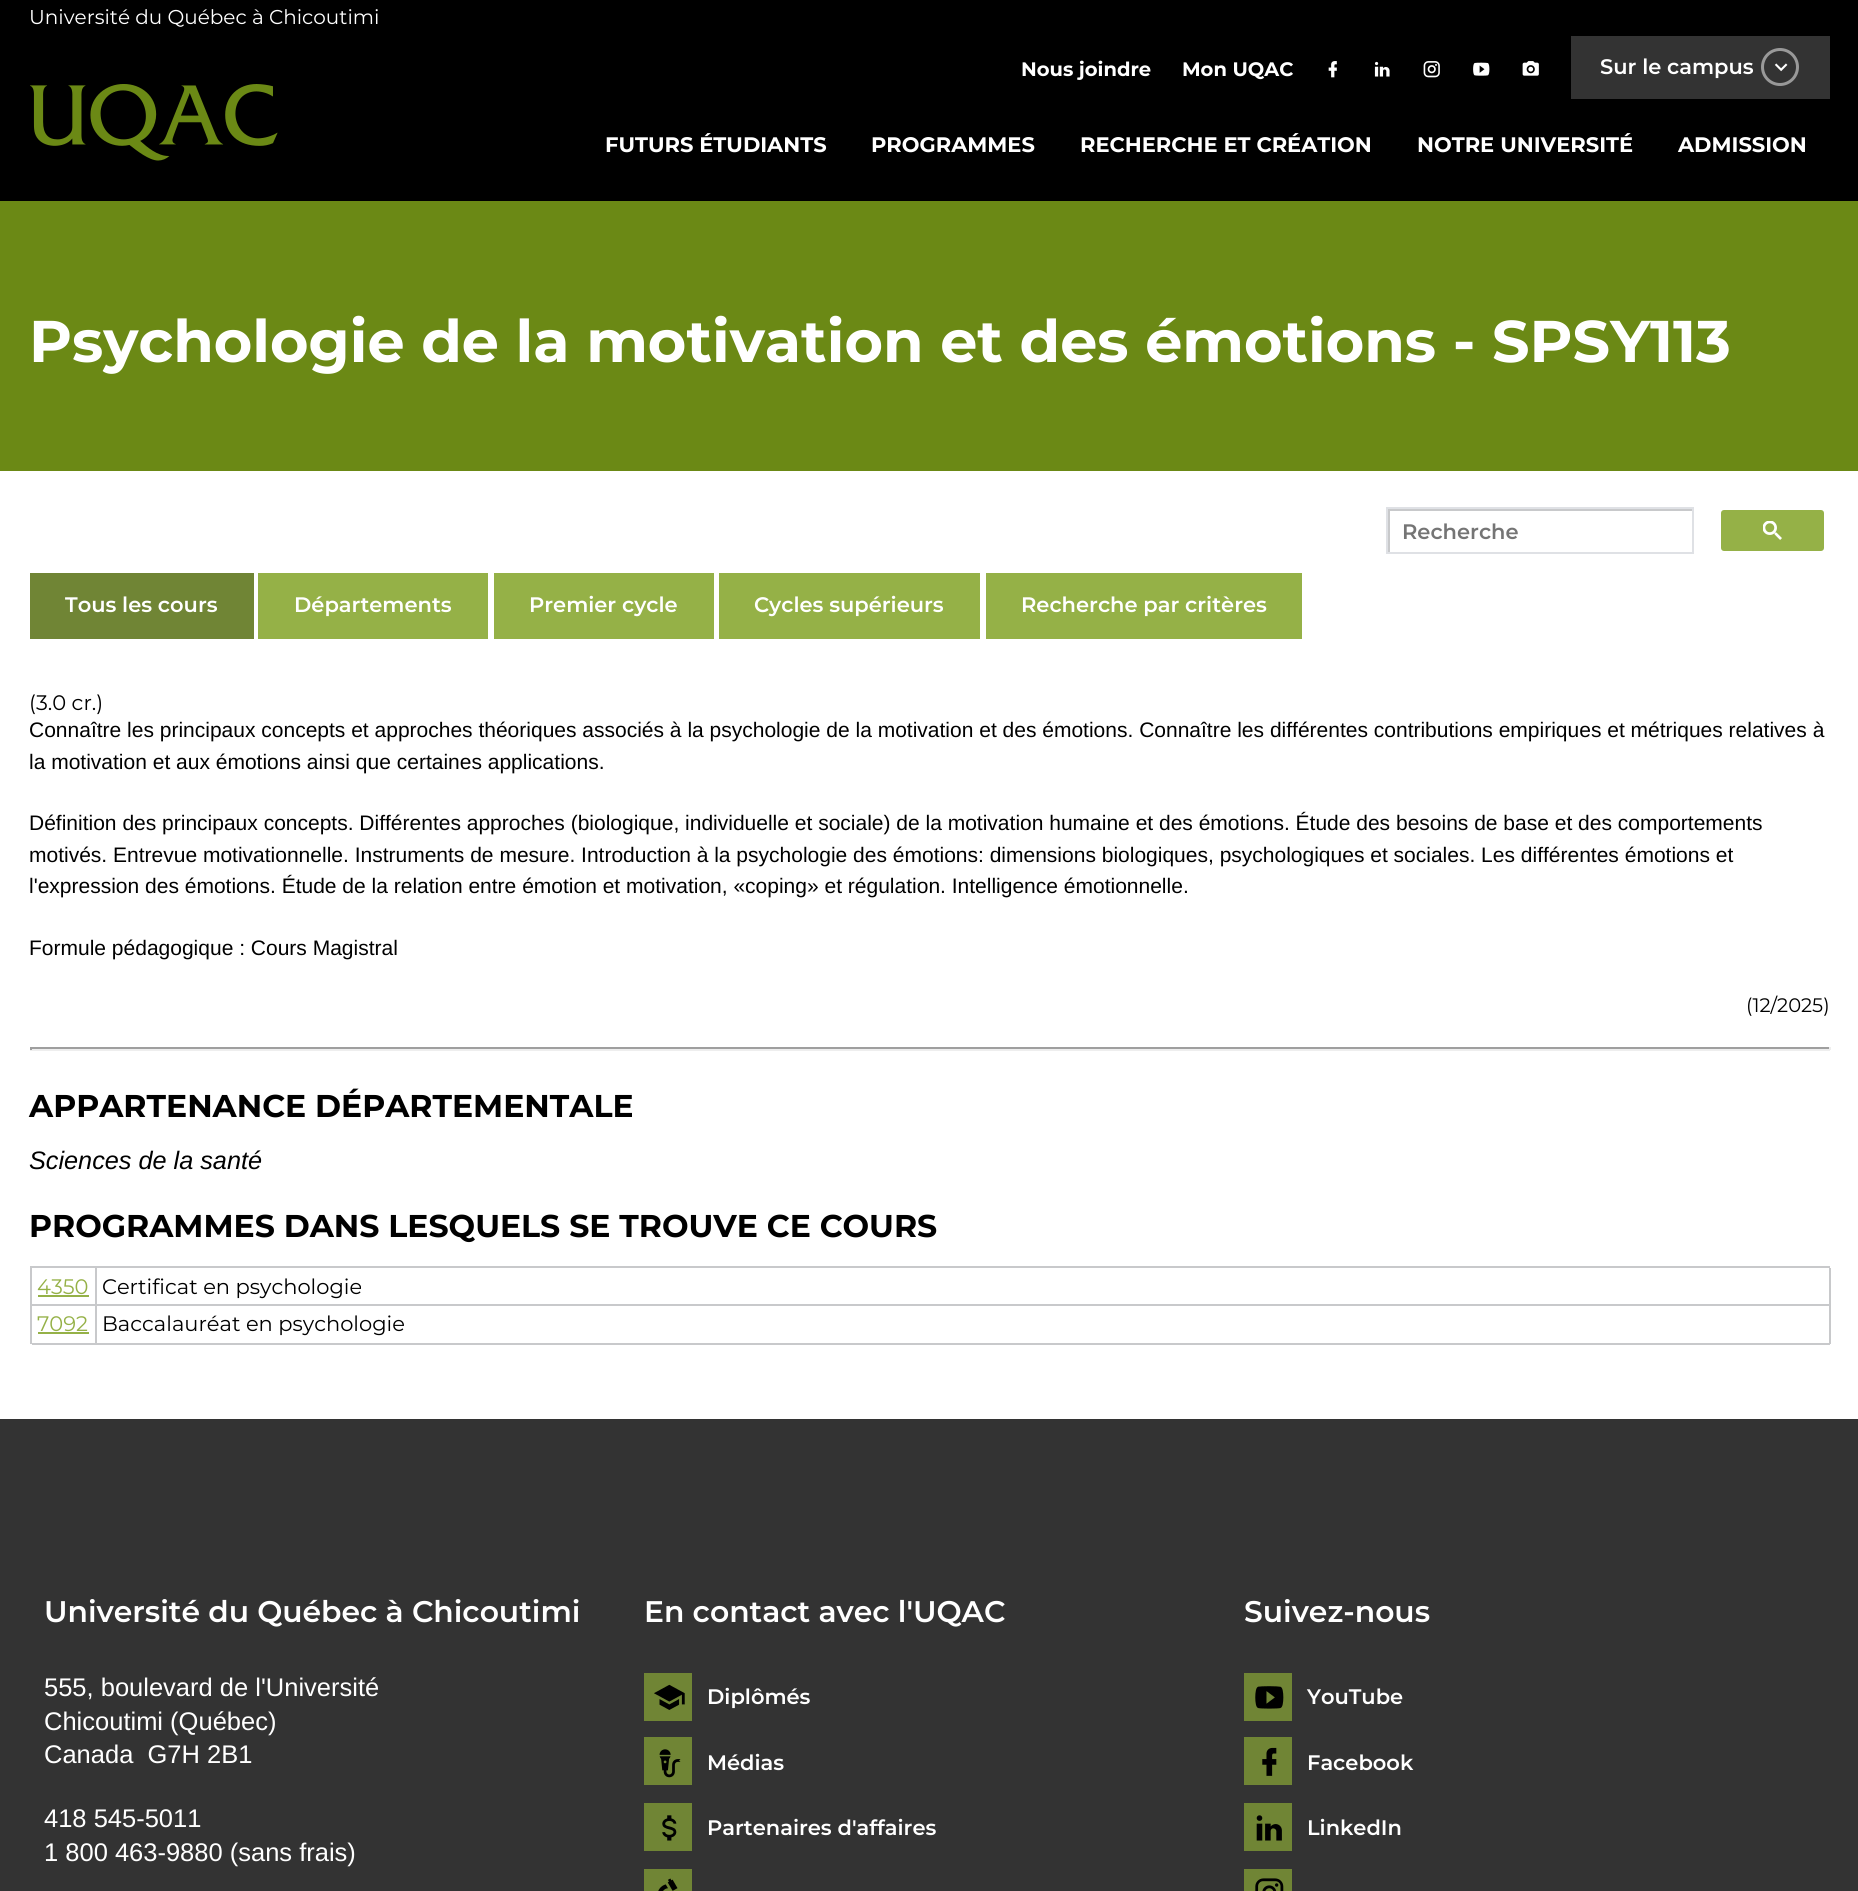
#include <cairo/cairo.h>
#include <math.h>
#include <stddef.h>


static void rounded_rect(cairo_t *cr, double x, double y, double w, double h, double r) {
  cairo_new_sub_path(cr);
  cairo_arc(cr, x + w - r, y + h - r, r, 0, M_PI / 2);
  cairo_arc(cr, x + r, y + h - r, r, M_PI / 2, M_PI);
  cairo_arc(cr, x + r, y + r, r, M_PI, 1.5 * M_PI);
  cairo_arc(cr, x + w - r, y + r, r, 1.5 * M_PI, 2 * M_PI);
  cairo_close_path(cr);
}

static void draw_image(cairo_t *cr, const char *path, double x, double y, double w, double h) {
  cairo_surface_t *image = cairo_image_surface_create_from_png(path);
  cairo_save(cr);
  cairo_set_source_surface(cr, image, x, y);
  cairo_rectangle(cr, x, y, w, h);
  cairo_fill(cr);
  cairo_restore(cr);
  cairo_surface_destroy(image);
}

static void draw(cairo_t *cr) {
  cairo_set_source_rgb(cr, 1, 1, 1);
  cairo_paint(cr);
  cairo_set_source_rgb(cr, 0, 0, 0);
  cairo_rectangle(cr, 0, 0, 1858, 201);
  cairo_fill(cr);
  draw_image(cr, "images/1.png", 1328, 61, 9, 17);
  draw_image(cr, "images/2.png", 1374, 61, 16, 16);
  draw_image(cr, "images/3.png", 1423, 61, 17, 17);
  draw_image(cr, "images/4.png", 1473, 62, 17, 14);
  draw_image(cr, "images/5.png", 1522, 61, 17, 15);
  cairo_set_source_rgb(cr, 51 / 255.0, 51 / 255.0, 51 / 255.0);
  cairo_rectangle(cr, 1571, 36, 259, 63);
  cairo_fill(cr);
  cairo_arc(cr, 1780, 67, 17.5, 0, 2 * M_PI);
  cairo_set_source_rgb(cr, 153 / 255.0, 153 / 255.0, 153 / 255.0);
  cairo_set_line_width(cr, 3);
  cairo_stroke(cr);
  draw_image(cr, "images/6.png", 1774, 63, 14, 9);
  draw_image(cr, "images/7.png", 30, 84, 248, 77);
  cairo_set_source_rgb(cr, 107 / 255.0, 137 / 255.0, 21 / 255.0);
  cairo_rectangle(cr, 0, 201, 1858, 270);
  cairo_fill(cr);
  cairo_rectangle(cr, 1387, 508, 306, 45);
  cairo_set_source_rgb(cr, 223 / 255.0, 225 / 255.0, 229 / 255.0);
  cairo_set_line_width(cr, 2);
  cairo_stroke(cr);
  cairo_set_source_rgb(cr, 200 / 255.0, 201 / 255.0, 203 / 255.0);
  cairo_rectangle(cr, 1388, 509, 304, 2);
  cairo_fill(cr);
  cairo_rectangle(cr, 1388, 509, 2, 43);
  cairo_fill(cr);
  cairo_set_source_rgb(cr, 149 / 255.0, 177 / 255.0, 71 / 255.0);
  rounded_rect(cr, 1722, 511, 101, 39, 2);
  cairo_fill_preserve(cr);
  cairo_stroke(cr);
  draw_image(cr, "images/8.png", 1763, 521, 19, 19);
  cairo_set_source_rgb(cr, 112 / 255.0, 133 / 255.0, 53 / 255.0);
  cairo_rectangle(cr, 30, 573, 224, 66);
  cairo_fill(cr);
  cairo_set_source_rgb(cr, 149 / 255.0, 177 / 255.0, 71 / 255.0);
  cairo_rectangle(cr, 258, 573, 230, 66);
  cairo_fill(cr);
  cairo_rectangle(cr, 494, 573, 220, 66);
  cairo_fill(cr);
  cairo_rectangle(cr, 719, 573, 261, 66);
  cairo_fill(cr);
  cairo_rectangle(cr, 986, 573, 316, 66);
  cairo_fill(cr);
  cairo_set_source_rgb(cr, 159 / 255.0, 159 / 255.0, 159 / 255.0);
  cairo_rectangle(cr, 30, 1047, 1800, 2);
  cairo_fill(cr);
  cairo_set_source_rgb(cr, 238 / 255.0, 238 / 255.0, 238 / 255.0);
  cairo_rectangle(cr, 1829, 1047, 2, 3);
  cairo_fill(cr);
  cairo_rectangle(cr, 30, 1049, 1800, 2);
  cairo_fill(cr);
  cairo_set_source_rgb(cr, 159 / 255.0, 159 / 255.0, 159 / 255.0);
  cairo_rectangle(cr, 30, 1047, 2, 3);
  cairo_fill(cr);
  cairo_set_source_rgb(cr, 200 / 255.0, 201 / 255.0, 203 / 255.0);
  cairo_rectangle(cr, 30, 1266, 1800, 2);
  cairo_fill(cr);
  cairo_rectangle(cr, 30, 1266, 2, 78);
  cairo_fill(cr);
  cairo_rectangle(cr, 95, 1268, 2, 37);
  cairo_fill(cr);
  cairo_rectangle(cr, 32, 1304, 64, 2);
  cairo_fill(cr);
  cairo_set_source_rgb(cr, 149 / 255.0, 177 / 255.0, 71 / 255.0);
  cairo_rectangle(cr, 38, 1295, 51, 2);
  cairo_fill(cr);
  cairo_set_source_rgb(cr, 200 / 255.0, 201 / 255.0, 203 / 255.0);
  cairo_rectangle(cr, 1829, 1268, 2, 37);
  cairo_fill(cr);
  cairo_rectangle(cr, 96, 1304, 1734, 2);
  cairo_fill(cr);
  cairo_rectangle(cr, 95, 1305, 2, 39);
  cairo_fill(cr);
  cairo_rectangle(cr, 32, 1343, 64, 2);
  cairo_fill(cr);
  cairo_set_source_rgb(cr, 149 / 255.0, 177 / 255.0, 71 / 255.0);
  cairo_rectangle(cr, 38, 1332, 51, 2);
  cairo_fill(cr);
  cairo_set_source_rgb(cr, 200 / 255.0, 201 / 255.0, 203 / 255.0);
  cairo_rectangle(cr, 1829, 1305, 2, 39);
  cairo_fill(cr);
  cairo_rectangle(cr, 96, 1343, 1734, 2);
  cairo_fill(cr);
  cairo_set_source_rgb(cr, 51 / 255.0, 51 / 255.0, 51 / 255.0);
  cairo_rectangle(cr, 0, 1419, 1858, 472);
  cairo_fill(cr);
  cairo_set_source_rgb(cr, 112 / 255.0, 133 / 255.0, 53 / 255.0);
  cairo_rectangle(cr, 644, 1673, 48, 48);
  cairo_fill(cr);
  draw_image(cr, "images/9.png", 654, 1684, 31, 26);
  cairo_rectangle(cr, 644, 1737, 48, 48);
  cairo_fill(cr);
  draw_image(cr, "images/10.png", 659, 1749, 22, 29);
  cairo_rectangle(cr, 644, 1803, 48, 48);
  cairo_fill(cr);
  draw_image(cr, "images/11.png", 662, 1815, 15, 26);
  cairo_rectangle(cr, 644, 1869, 48, 22);
  cairo_fill(cr);
  draw_image(cr, "images/12.png", 658, 1878, 20, 13);
  cairo_rectangle(cr, 1244, 1673, 48, 48);
  cairo_fill(cr);
  draw_image(cr, "images/13.png", 1255, 1686, 29, 23);
  cairo_rectangle(cr, 1244, 1737, 48, 48);
  cairo_fill(cr);
  draw_image(cr, "images/14.png", 1262, 1747, 15, 29);
  cairo_rectangle(cr, 1244, 1803, 48, 48);
  cairo_fill(cr);
  draw_image(cr, "images/15.png", 1256, 1815, 26, 26);
  cairo_rectangle(cr, 1244, 1869, 48, 22);
  cairo_fill(cr);
  draw_image(cr, "images/16.png", 1255, 1878, 29, 13);
  cairo_select_font_face(cr, "Montserrat", CAIRO_FONT_SLANT_NORMAL, CAIRO_FONT_WEIGHT_NORMAL);
  cairo_set_font_size(cr, 20);
  cairo_set_source_rgb(cr, 1, 1, 1);
  cairo_move_to(cr, 29, 24);
  cairo_show_text(cr, "Université du Québec à Chicoutimi");
  cairo_select_font_face(cr, "Montserrat", CAIRO_FONT_SLANT_NORMAL, CAIRO_FONT_WEIGHT_BOLD);
  cairo_set_font_size(cr, 19.5);
  cairo_move_to(cr, 1021, 76);
  cairo_show_text(cr, "Nous joindre");
  cairo_move_to(cr, 1182, 76);
  cairo_show_text(cr, "Mon UQAC");
  cairo_select_font_face(cr, "Montserrat SemiBold", CAIRO_FONT_SLANT_NORMAL, CAIRO_FONT_WEIGHT_NORMAL);
  cairo_set_font_size(cr, 21);
  cairo_move_to(cr, 1600, 74);
  cairo_show_text(cr, "Sur le campus");
  cairo_select_font_face(cr, "Montserrat", CAIRO_FONT_SLANT_NORMAL, CAIRO_FONT_WEIGHT_BOLD);
  cairo_move_to(cr, 605, 152);
  cairo_show_text(cr, "FUTURS ÉTUDIANTS");
  cairo_move_to(cr, 871, 152);
  cairo_show_text(cr, "PROGRAMMES");
  cairo_move_to(cr, 1080, 152);
  cairo_show_text(cr, "RECHERCHE ET CRÉATION");
  cairo_move_to(cr, 1417, 152);
  cairo_show_text(cr, "NOTRE UNIVERSITÉ");
  cairo_move_to(cr, 1678, 152);
  cairo_show_text(cr, "ADMISSION");
  cairo_set_font_size(cr, 58.8);
  cairo_move_to(cr, 29, 362);
  cairo_show_text(cr, "Psychologie de la motivation et des émotions - SPSY113");
  cairo_select_font_face(cr, "Montserrat SemiBold", CAIRO_FONT_SLANT_NORMAL, CAIRO_FONT_WEIGHT_NORMAL);
  cairo_set_font_size(cr, 21);
  cairo_set_source_rgb(cr, 117 / 255.0, 117 / 255.0, 117 / 255.0);
  cairo_move_to(cr, 1402, 539);
  cairo_show_text(cr, "Recherche");
  cairo_set_source_rgb(cr, 1, 1, 1);
  cairo_move_to(cr, 65, 612);
  cairo_show_text(cr, "Tous les cours");
  cairo_move_to(cr, 294, 612);
  cairo_show_text(cr, "Départements");
  cairo_move_to(cr, 529, 612);
  cairo_show_text(cr, "Premier cycle");
  cairo_move_to(cr, 754, 612);
  cairo_show_text(cr, "Cycles supérieurs");
  cairo_move_to(cr, 1021, 612);
  cairo_show_text(cr, "Recherche par critères");
  cairo_select_font_face(cr, "Montserrat", CAIRO_FONT_SLANT_NORMAL, CAIRO_FONT_WEIGHT_NORMAL);
  cairo_set_source_rgb(cr, 0, 0, 0);
  cairo_move_to(cr, 29, 710);
  cairo_show_text(cr, "(3.0 cr.)");
  cairo_select_font_face(cr, "Liberation Sans", CAIRO_FONT_SLANT_NORMAL, CAIRO_FONT_WEIGHT_NORMAL);
  cairo_move_to(cr, 29, 737);
  cairo_show_text(cr, "Connaître les principaux concepts et approches théoriques associés à la psychologie de la motivation et des émotions. Connaître les différentes contributions empiriques et métriques relatives à");
  cairo_move_to(cr, 29, 769);
  cairo_show_text(cr, "la motivation et aux émotions ainsi que certaines applications.");
  cairo_move_to(cr, 29, 830);
  cairo_show_text(cr, "Définition des principaux concepts. Différentes approches (biologique, individuelle et sociale) de la motivation humaine et des émotions. Étude des besoins de base et des comportements");
  cairo_move_to(cr, 29, 862);
  cairo_show_text(cr, "motivés. Entrevue motivationnelle. Instruments de mesure. Introduction à la psychologie des émotions: dimensions biologiques, psychologiques et sociales. Les différentes émotions et");
  cairo_move_to(cr, 29, 893);
  cairo_show_text(cr, "l'expression des émotions. Étude de la relation entre émotion et motivation, «coping» et régulation. Intelligence émotionnelle.");
  cairo_move_to(cr, 29, 955);
  cairo_show_text(cr, "Formule pédagogique : Cours Magistral");
  cairo_select_font_face(cr, "Montserrat", CAIRO_FONT_SLANT_NORMAL, CAIRO_FONT_WEIGHT_NORMAL);
  cairo_set_font_size(cr, 19.5);
  cairo_move_to(cr, 1746, 1012);
  cairo_show_text(cr, "(12/2025)");
  cairo_select_font_face(cr, "Montserrat", CAIRO_FONT_SLANT_NORMAL, CAIRO_FONT_WEIGHT_BOLD);
  cairo_set_font_size(cr, 31.5);
  cairo_move_to(cr, 29, 1117);
  cairo_show_text(cr, "APPARTENANCE DÉPARTEMENTALE");
  cairo_select_font_face(cr, "Liberation Sans", CAIRO_FONT_SLANT_ITALIC, CAIRO_FONT_WEIGHT_NORMAL);
  cairo_set_font_size(cr, 25.25);
  cairo_move_to(cr, 29, 1169);
  cairo_show_text(cr, "Sciences de la santé");
  cairo_select_font_face(cr, "Montserrat", CAIRO_FONT_SLANT_NORMAL, CAIRO_FONT_WEIGHT_BOLD);
  cairo_set_font_size(cr, 31.5);
  cairo_move_to(cr, 29, 1237);
  cairo_show_text(cr, "PROGRAMMES DANS LESQUELS SE TROUVE CE COURS");
  cairo_select_font_face(cr, "Montserrat", CAIRO_FONT_SLANT_NORMAL, CAIRO_FONT_WEIGHT_NORMAL);
  cairo_set_font_size(cr, 21);
  cairo_set_source_rgb(cr, 149 / 255.0, 177 / 255.0, 71 / 255.0);
  cairo_move_to(cr, 37, 1294);
  cairo_show_text(cr, "4350");
  cairo_set_source_rgb(cr, 0, 0, 0);
  cairo_move_to(cr, 102, 1294);
  cairo_show_text(cr, "Certificat en psychologie");
  cairo_set_source_rgb(cr, 149 / 255.0, 177 / 255.0, 71 / 255.0);
  cairo_move_to(cr, 37, 1331);
  cairo_show_text(cr, "7092");
  cairo_set_source_rgb(cr, 0, 0, 0);
  cairo_move_to(cr, 102, 1331);
  cairo_show_text(cr, "Baccalauréat en psychologie");
  cairo_select_font_face(cr, "Montserrat SemiBold", CAIRO_FONT_SLANT_NORMAL, CAIRO_FONT_WEIGHT_NORMAL);
  cairo_set_font_size(cr, 29.8);
  cairo_set_source_rgb(cr, 1, 1, 1);
  cairo_move_to(cr, 44, 1622);
  cairo_show_text(cr, "Université du Québec à Chicoutimi");
  cairo_select_font_face(cr, "Liberation Sans", CAIRO_FONT_SLANT_NORMAL, CAIRO_FONT_WEIGHT_NORMAL);
  cairo_set_font_size(cr, 25.5);
  cairo_move_to(cr, 44, 1696);
  cairo_show_text(cr, "555, boulevard de l'Université");
  cairo_move_to(cr, 44, 1730);
  cairo_show_text(cr, "Chicoutimi (Québec)");
  cairo_move_to(cr, 44, 1763);
  cairo_show_text(cr, "Canada  G7H 2B1");
  cairo_move_to(cr, 44, 1827);
  cairo_show_text(cr, "418 545-5011");
  cairo_move_to(cr, 44, 1861);
  cairo_show_text(cr, "1 800 463-9880 (sans frais)");
  cairo_select_font_face(cr, "Montserrat SemiBold", CAIRO_FONT_SLANT_NORMAL, CAIRO_FONT_WEIGHT_NORMAL);
  cairo_set_font_size(cr, 29.8);
  cairo_move_to(cr, 644, 1622);
  cairo_show_text(cr, "En contact avec l'UQAC");
  cairo_set_font_size(cr, 21);
  cairo_move_to(cr, 707, 1704);
  cairo_show_text(cr, "Diplômés");
  cairo_move_to(cr, 707, 1770);
  cairo_show_text(cr, "Médias");
  cairo_move_to(cr, 707, 1835);
  cairo_show_text(cr, "Partenaires d'affaires");
  cairo_set_font_size(cr, 29.8);
  cairo_move_to(cr, 1244, 1622);
  cairo_show_text(cr, "Suivez-nous");
  cairo_set_font_size(cr, 21);
  cairo_move_to(cr, 1307, 1704);
  cairo_show_text(cr, "YouTube");
  cairo_move_to(cr, 1307, 1770);
  cairo_show_text(cr, "Facebook");
  cairo_move_to(cr, 1307, 1835);
  cairo_show_text(cr, "LinkedIn");
}

int main(void) {
  cairo_surface_t *surface = cairo_image_surface_create(CAIRO_FORMAT_RGB24, 1858, 1891);
  cairo_t *cr = cairo_create(surface);
  cairo_font_options_t *options = cairo_font_options_create();
  cairo_font_options_set_hint_metrics(options, CAIRO_HINT_METRICS_OFF);
  cairo_font_options_set_hint_style(options, CAIRO_HINT_STYLE_NONE);
  cairo_set_font_options(cr, options);
  cairo_set_miter_limit(cr, 4);
  draw(cr);
  cairo_surface_write_to_png(surface, "out.png");
  cairo_font_options_destroy(options);
  cairo_destroy(cr);
  cairo_surface_destroy(surface);
  return 0;
}
